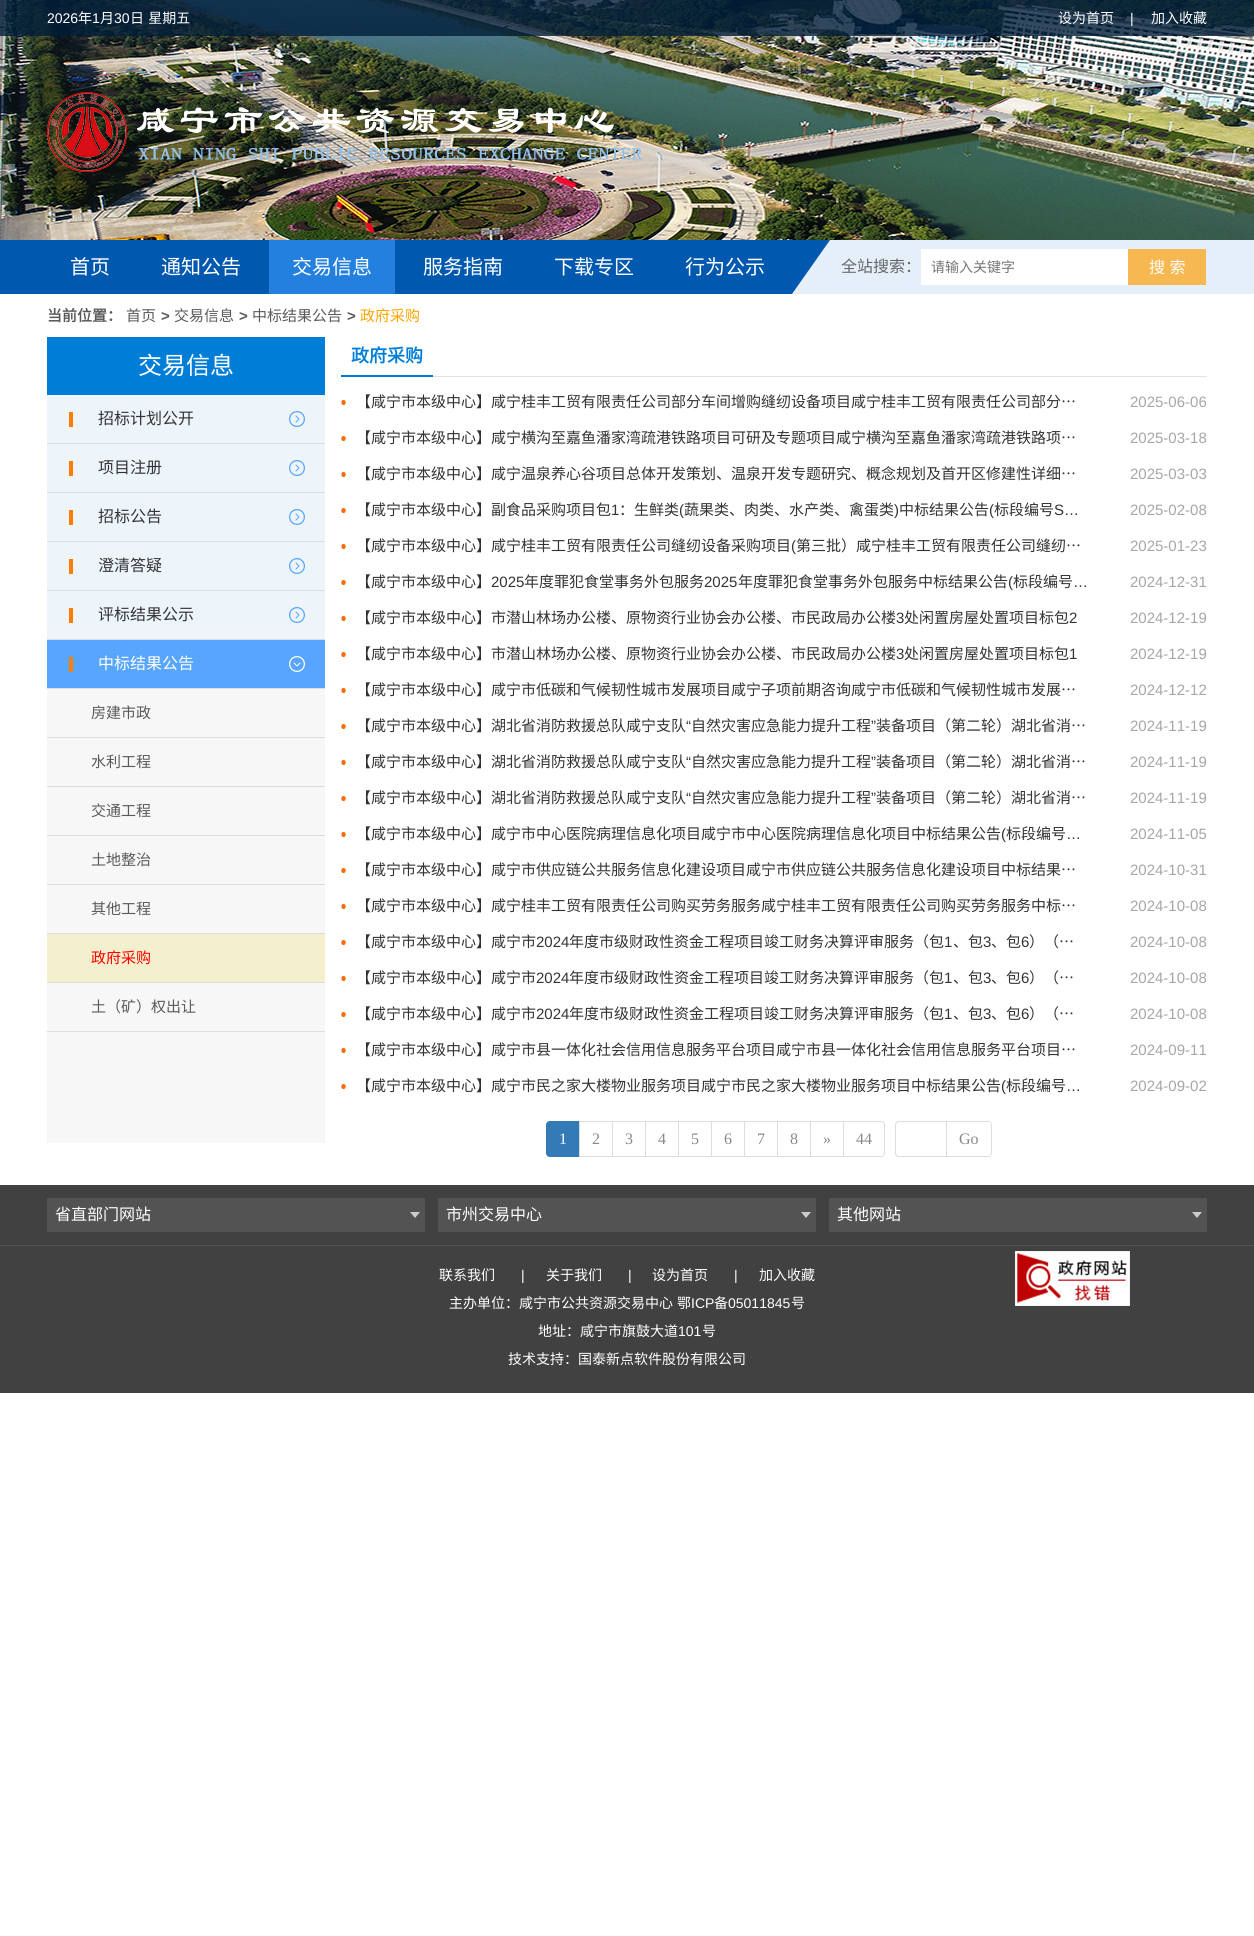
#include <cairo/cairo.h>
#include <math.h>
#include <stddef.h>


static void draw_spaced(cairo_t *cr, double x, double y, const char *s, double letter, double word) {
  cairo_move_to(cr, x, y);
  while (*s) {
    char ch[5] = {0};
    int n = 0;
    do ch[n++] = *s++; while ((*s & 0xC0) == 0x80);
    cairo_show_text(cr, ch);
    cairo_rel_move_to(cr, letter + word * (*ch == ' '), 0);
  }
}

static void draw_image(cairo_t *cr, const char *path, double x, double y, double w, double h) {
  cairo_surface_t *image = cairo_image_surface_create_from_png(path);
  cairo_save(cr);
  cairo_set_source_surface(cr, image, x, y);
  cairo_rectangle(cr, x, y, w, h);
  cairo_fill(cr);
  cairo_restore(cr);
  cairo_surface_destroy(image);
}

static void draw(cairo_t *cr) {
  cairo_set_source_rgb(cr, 1, 1, 1);
  cairo_paint(cr);
  draw_image(cr, "images/1.png", 0, 0, 1254, 240);
  cairo_set_source_rgba(cr, 1 / 255.0, 29 / 255.0, 57 / 255.0, 0.8);
  cairo_rectangle(cr, 0, 0, 1254, 36);
  cairo_fill(cr);
  draw_image(cr, "images/2.png", 47, 92, 595, 80);
  cairo_set_source_rgb(cr, 1 / 255.0, 88 / 255.0, 175 / 255.0);
  cairo_rectangle(cr, 0, 240, 792, 54);
  cairo_fill(cr);
  cairo_set_source_rgb(cr, 229 / 255.0, 239 / 255.0, 250 / 255.0);
  cairo_rectangle(cr, 830, 240, 424, 54);
  cairo_fill(cr);
  cairo_set_source_rgb(cr, 36 / 255.0, 128 / 255.0, 223 / 255.0);
  cairo_rectangle(cr, 269, 240, 126, 54);
  cairo_fill(cr);
  draw_image(cr, "images/3.png", 792, 240, 38, 54);
  cairo_set_source_rgb(cr, 1, 1, 1);
  cairo_rectangle(cr, 921, 249, 207, 36);
  cairo_fill(cr);
  cairo_set_source_rgb(cr, 247 / 255.0, 183 / 255.0, 81 / 255.0);
  cairo_rectangle(cr, 1128, 249, 78, 36);
  cairo_fill(cr);
  cairo_set_source_rgb(cr, 0, 126 / 255.0, 215 / 255.0);
  cairo_rectangle(cr, 47, 337, 278, 58);
  cairo_fill(cr);
  cairo_set_source_rgb(cr, 247 / 255.0, 247 / 255.0, 247 / 255.0);
  cairo_rectangle(cr, 47, 689, 278, 454);
  cairo_fill(cr);
  cairo_set_source_rgb(cr, 237 / 255.0, 245 / 255.0, 251 / 255.0);
  cairo_rectangle(cr, 47, 395, 278, 48);
  cairo_fill(cr);
  cairo_set_source_rgb(cr, 221 / 255.0, 221 / 255.0, 221 / 255.0);
  cairo_rectangle(cr, 47, 443, 278, 1);
  cairo_fill(cr);
  cairo_set_source_rgb(cr, 1, 126 / 255.0, 0);
  cairo_rectangle(cr, 69, 412, 4, 15);
  cairo_fill(cr);
  draw_image(cr, "images/4.png", 289, 411, 16, 16);
  cairo_set_source_rgb(cr, 237 / 255.0, 245 / 255.0, 251 / 255.0);
  cairo_rectangle(cr, 47, 444, 278, 48);
  cairo_fill(cr);
  cairo_set_source_rgb(cr, 221 / 255.0, 221 / 255.0, 221 / 255.0);
  cairo_rectangle(cr, 47, 492, 278, 1);
  cairo_fill(cr);
  cairo_set_source_rgb(cr, 1, 126 / 255.0, 0);
  cairo_rectangle(cr, 69, 461, 4, 15);
  cairo_fill(cr);
  draw_image(cr, "images/4.png", 289, 460, 16, 16);
  cairo_set_source_rgb(cr, 237 / 255.0, 245 / 255.0, 251 / 255.0);
  cairo_rectangle(cr, 47, 493, 278, 48);
  cairo_fill(cr);
  cairo_set_source_rgb(cr, 221 / 255.0, 221 / 255.0, 221 / 255.0);
  cairo_rectangle(cr, 47, 541, 278, 1);
  cairo_fill(cr);
  cairo_set_source_rgb(cr, 1, 126 / 255.0, 0);
  cairo_rectangle(cr, 69, 510, 4, 15);
  cairo_fill(cr);
  draw_image(cr, "images/4.png", 289, 509, 16, 16);
  cairo_set_source_rgb(cr, 237 / 255.0, 245 / 255.0, 251 / 255.0);
  cairo_rectangle(cr, 47, 542, 278, 48);
  cairo_fill(cr);
  cairo_set_source_rgb(cr, 221 / 255.0, 221 / 255.0, 221 / 255.0);
  cairo_rectangle(cr, 47, 590, 278, 1);
  cairo_fill(cr);
  cairo_set_source_rgb(cr, 1, 126 / 255.0, 0);
  cairo_rectangle(cr, 69, 559, 4, 15);
  cairo_fill(cr);
  draw_image(cr, "images/4.png", 289, 558, 16, 16);
  cairo_set_source_rgb(cr, 237 / 255.0, 245 / 255.0, 251 / 255.0);
  cairo_rectangle(cr, 47, 591, 278, 48);
  cairo_fill(cr);
  cairo_set_source_rgb(cr, 221 / 255.0, 221 / 255.0, 221 / 255.0);
  cairo_rectangle(cr, 47, 639, 278, 1);
  cairo_fill(cr);
  cairo_set_source_rgb(cr, 1, 126 / 255.0, 0);
  cairo_rectangle(cr, 69, 608, 4, 15);
  cairo_fill(cr);
  draw_image(cr, "images/4.png", 289, 607, 16, 16);
  cairo_set_source_rgb(cr, 87 / 255.0, 165 / 255.0, 253 / 255.0);
  cairo_rectangle(cr, 47, 640, 278, 48);
  cairo_fill(cr);
  cairo_set_source_rgb(cr, 221 / 255.0, 221 / 255.0, 221 / 255.0);
  cairo_rectangle(cr, 47, 688, 278, 1);
  cairo_fill(cr);
  cairo_set_source_rgb(cr, 1, 126 / 255.0, 0);
  cairo_rectangle(cr, 69, 657, 4, 15);
  cairo_fill(cr);
  draw_image(cr, "images/5.png", 289, 656, 16, 16);
  cairo_set_source_rgb(cr, 221 / 255.0, 221 / 255.0, 221 / 255.0);
  cairo_rectangle(cr, 47, 737, 278, 1);
  cairo_fill(cr);
  cairo_rectangle(cr, 47, 786, 278, 1);
  cairo_fill(cr);
  cairo_rectangle(cr, 47, 835, 278, 1);
  cairo_fill(cr);
  cairo_rectangle(cr, 47, 884, 278, 1);
  cairo_fill(cr);
  cairo_rectangle(cr, 47, 933, 278, 1);
  cairo_fill(cr);
  cairo_set_source_rgb(cr, 244 / 255.0, 239 / 255.0, 204 / 255.0);
  cairo_rectangle(cr, 47, 934, 278, 48);
  cairo_fill(cr);
  cairo_set_source_rgb(cr, 221 / 255.0, 221 / 255.0, 221 / 255.0);
  cairo_rectangle(cr, 47, 982, 278, 1);
  cairo_fill(cr);
  cairo_rectangle(cr, 47, 1031, 278, 1);
  cairo_fill(cr);
  cairo_set_source_rgb(cr, 226 / 255.0, 226 / 255.0, 226 / 255.0);
  cairo_rectangle(cr, 433, 376, 774, 1);
  cairo_fill(cr);
  cairo_set_source_rgb(cr, 0, 126 / 255.0, 215 / 255.0);
  cairo_rectangle(cr, 341, 375, 92, 2);
  cairo_fill(cr);
  draw_image(cr, "images/6.png", 341, 400, 5, 5);
  draw_image(cr, "images/6.png", 341, 436, 5, 5);
  draw_image(cr, "images/6.png", 341, 472, 5, 5);
  draw_image(cr, "images/6.png", 341, 508, 5, 5);
  draw_image(cr, "images/6.png", 341, 544, 5, 5);
  draw_image(cr, "images/6.png", 341, 580, 5, 5);
  draw_image(cr, "images/6.png", 341, 616, 5, 5);
  draw_image(cr, "images/6.png", 341, 652, 5, 5);
  draw_image(cr, "images/6.png", 341, 688, 5, 5);
  draw_image(cr, "images/6.png", 341, 724, 5, 5);
  draw_image(cr, "images/6.png", 341, 760, 5, 5);
  draw_image(cr, "images/6.png", 341, 796, 5, 5);
  draw_image(cr, "images/6.png", 341, 832, 5, 5);
  draw_image(cr, "images/6.png", 341, 868, 5, 5);
  draw_image(cr, "images/6.png", 341, 904, 5, 5);
  draw_image(cr, "images/6.png", 341, 940, 5, 5);
  draw_image(cr, "images/6.png", 341, 976, 5, 5);
  draw_image(cr, "images/6.png", 341, 1012, 5, 5);
  draw_image(cr, "images/6.png", 341, 1048, 5, 5);
  draw_image(cr, "images/6.png", 341, 1084, 5, 5);
  cairo_set_source_rgb(cr, 51 / 255.0, 122 / 255.0, 183 / 255.0);
  cairo_new_path(cr);
  cairo_move_to(cr, 550, 1121.5);
  cairo_line_to(cr, 579.5, 1121.5);
  cairo_line_to(cr, 579.5, 1156.5);
  cairo_line_to(cr, 550, 1156.5);
  cairo_curve_to(cr, 548, 1156.5, 546.5, 1155, 546.5, 1153);
  cairo_line_to(cr, 546.5, 1125);
  cairo_curve_to(cr, 546.5, 1123, 548, 1121.5, 550, 1121.5);
  cairo_close_path(cr);
  cairo_fill_preserve(cr);
  cairo_set_line_width(cr, 1);
  cairo_stroke(cr);
  cairo_rectangle(cr, 579.5, 1121.5, 33, 35);
  cairo_set_source_rgb(cr, 221 / 255.0, 221 / 255.0, 221 / 255.0);
  cairo_stroke(cr);
  cairo_rectangle(cr, 612.5, 1121.5, 33, 35);
  cairo_stroke(cr);
  cairo_rectangle(cr, 645.5, 1121.5, 33, 35);
  cairo_stroke(cr);
  cairo_rectangle(cr, 678.5, 1121.5, 33, 35);
  cairo_stroke(cr);
  cairo_rectangle(cr, 711.5, 1121.5, 33, 35);
  cairo_stroke(cr);
  cairo_rectangle(cr, 744.5, 1121.5, 33, 35);
  cairo_stroke(cr);
  cairo_rectangle(cr, 777.5, 1121.5, 33, 35);
  cairo_stroke(cr);
  cairo_rectangle(cr, 810.5, 1121.5, 33, 35);
  cairo_stroke(cr);
  cairo_set_source_rgb(cr, 1, 1, 1);
  cairo_new_path(cr);
  cairo_move_to(cr, 843.5, 1121.5);
  cairo_line_to(cr, 881, 1121.5);
  cairo_curve_to(cr, 883, 1121.5, 884.5, 1123, 884.5, 1125);
  cairo_line_to(cr, 884.5, 1153);
  cairo_curve_to(cr, 884.5, 1155, 883, 1156.5, 881, 1156.5);
  cairo_line_to(cr, 843.5, 1156.5);
  cairo_close_path(cr);
  cairo_fill_preserve(cr);
  cairo_set_source_rgb(cr, 221 / 255.0, 221 / 255.0, 221 / 255.0);
  cairo_stroke(cr);
  cairo_new_path(cr);
  cairo_move_to(cr, 899, 1121.5);
  cairo_line_to(cr, 946.5, 1121.5);
  cairo_line_to(cr, 946.5, 1156.5);
  cairo_line_to(cr, 899, 1156.5);
  cairo_curve_to(cr, 897, 1156.5, 895.5, 1155, 895.5, 1153);
  cairo_line_to(cr, 895.5, 1125);
  cairo_curve_to(cr, 895.5, 1123, 897, 1121.5, 899, 1121.5);
  cairo_close_path(cr);
  cairo_stroke(cr);
  cairo_set_fill_rule(cr, CAIRO_FILL_RULE_EVEN_ODD);
  cairo_new_path(cr);
  cairo_move_to(cr, 947, 1121);
  cairo_line_to(cr, 988, 1121);
  cairo_curve_to(cr, 990, 1121, 992, 1123, 992, 1125);
  cairo_line_to(cr, 992, 1153);
  cairo_curve_to(cr, 992, 1155, 990, 1157, 988, 1157);
  cairo_line_to(cr, 947, 1157);
  cairo_close_path(cr);
  cairo_move_to(cr, 947, 1122);
  cairo_line_to(cr, 988, 1122);
  cairo_curve_to(cr, 990, 1122, 991, 1123, 991, 1125);
  cairo_line_to(cr, 991, 1153);
  cairo_curve_to(cr, 991, 1155, 990, 1156, 988, 1156);
  cairo_line_to(cr, 947, 1156);
  cairo_close_path(cr);
  cairo_fill(cr);
  cairo_set_source_rgb(cr, 65 / 255.0, 65 / 255.0, 65 / 255.0);
  cairo_rectangle(cr, 0, 1185, 1254, 208);
  cairo_fill(cr);
  cairo_set_source_rgb(cr, 85 / 255.0, 85 / 255.0, 85 / 255.0);
  cairo_rectangle(cr, 0, 1245, 1254, 1);
  cairo_fill(cr);
  cairo_set_source_rgb(cr, 83 / 255.0, 83 / 255.0, 83 / 255.0);
  cairo_rectangle(cr, 47, 1198, 378, 34);
  cairo_fill(cr);
  draw_image(cr, "images/7.png", 410, 1212, 10, 6);
  cairo_rectangle(cr, 438, 1198, 378, 34);
  cairo_fill(cr);
  draw_image(cr, "images/7.png", 801, 1212, 10, 6);
  cairo_rectangle(cr, 829, 1198, 378, 34);
  cairo_fill(cr);
  draw_image(cr, "images/7.png", 1192, 1212, 10, 6);
  draw_image(cr, "images/8.png", 1015, 1251, 115, 55);
  cairo_select_font_face(cr, "Liberation Sans", CAIRO_FONT_SLANT_NORMAL, CAIRO_FONT_WEIGHT_NORMAL);
  cairo_set_font_size(cr, 14);
  cairo_set_source_rgb(cr, 1, 1, 1);
  cairo_move_to(cr, 47, 23);
  cairo_show_text(cr, "2026");
  cairo_select_font_face(cr, "Noto Sans CJK SC", CAIRO_FONT_SLANT_NORMAL, CAIRO_FONT_WEIGHT_NORMAL);
  cairo_move_to(cr, 78, 23);
  cairo_show_text(cr, "年");
  cairo_select_font_face(cr, "Liberation Sans", CAIRO_FONT_SLANT_NORMAL, CAIRO_FONT_WEIGHT_NORMAL);
  cairo_move_to(cr, 92, 23);
  cairo_show_text(cr, "1");
  cairo_select_font_face(cr, "Noto Sans CJK SC", CAIRO_FONT_SLANT_NORMAL, CAIRO_FONT_WEIGHT_NORMAL);
  cairo_move_to(cr, 100, 23);
  cairo_show_text(cr, "月");
  cairo_select_font_face(cr, "Liberation Sans", CAIRO_FONT_SLANT_NORMAL, CAIRO_FONT_WEIGHT_NORMAL);
  cairo_move_to(cr, 114, 23);
  cairo_show_text(cr, "30");
  cairo_select_font_face(cr, "Noto Sans CJK SC", CAIRO_FONT_SLANT_NORMAL, CAIRO_FONT_WEIGHT_NORMAL);
  draw_spaced(cr, 130, 23, "日 星期五", 0, 1);
  cairo_move_to(cr, 1058, 23);
  cairo_show_text(cr, "设为首页");
  cairo_select_font_face(cr, "Liberation Sans", CAIRO_FONT_SLANT_NORMAL, CAIRO_FONT_WEIGHT_NORMAL);
  cairo_move_to(cr, 1130, 23);
  cairo_show_text(cr, "|");
  cairo_select_font_face(cr, "Noto Sans CJK SC", CAIRO_FONT_SLANT_NORMAL, CAIRO_FONT_WEIGHT_NORMAL);
  cairo_move_to(cr, 1151, 23);
  cairo_show_text(cr, "加入收藏");
  cairo_set_font_size(cr, 20);
  cairo_move_to(cr, 70, 274);
  cairo_show_text(cr, "首页");
  cairo_move_to(cr, 161, 274);
  cairo_show_text(cr, "通知公告");
  cairo_move_to(cr, 292, 274);
  cairo_show_text(cr, "交易信息");
  cairo_move_to(cr, 423, 274);
  cairo_show_text(cr, "服务指南");
  cairo_move_to(cr, 554, 274);
  cairo_show_text(cr, "下载专区");
  cairo_move_to(cr, 685, 274);
  cairo_show_text(cr, "行为公示");
  cairo_set_font_size(cr, 16);
  cairo_set_source_rgb(cr, 102 / 255.0, 102 / 255.0, 102 / 255.0);
  cairo_move_to(cr, 841, 272);
  cairo_show_text(cr, "全站搜索：");
  cairo_set_font_size(cr, 14);
  cairo_set_source_rgb(cr, 117 / 255.0, 117 / 255.0, 117 / 255.0);
  cairo_move_to(cr, 931, 272);
  cairo_show_text(cr, "请输入关键字");
  cairo_set_font_size(cr, 16);
  cairo_set_source_rgb(cr, 1, 1, 1);
  draw_spaced(cr, 1149, 273, "搜 索", 0, 1);
  cairo_select_font_face(cr, "Noto Sans CJK SC", CAIRO_FONT_SLANT_NORMAL, CAIRO_FONT_WEIGHT_BOLD);
  cairo_set_font_size(cr, 15);
  cairo_set_source_rgb(cr, 90 / 255.0, 90 / 255.0, 90 / 255.0);
  cairo_move_to(cr, 47, 321);
  cairo_show_text(cr, "当前位置：");
  cairo_select_font_face(cr, "Noto Sans CJK SC", CAIRO_FONT_SLANT_NORMAL, CAIRO_FONT_WEIGHT_NORMAL);
  cairo_move_to(cr, 126, 321);
  cairo_show_text(cr, "首页");
  cairo_select_font_face(cr, "Liberation Sans", CAIRO_FONT_SLANT_NORMAL, CAIRO_FONT_WEIGHT_BOLD);
  cairo_move_to(cr, 161, 321);
  cairo_show_text(cr, ">");
  cairo_select_font_face(cr, "Noto Sans CJK SC", CAIRO_FONT_SLANT_NORMAL, CAIRO_FONT_WEIGHT_NORMAL);
  cairo_move_to(cr, 174, 321);
  cairo_show_text(cr, "交易信息");
  cairo_select_font_face(cr, "Liberation Sans", CAIRO_FONT_SLANT_NORMAL, CAIRO_FONT_WEIGHT_BOLD);
  cairo_move_to(cr, 239, 321);
  cairo_show_text(cr, ">");
  cairo_select_font_face(cr, "Noto Sans CJK SC", CAIRO_FONT_SLANT_NORMAL, CAIRO_FONT_WEIGHT_NORMAL);
  cairo_move_to(cr, 252, 321);
  cairo_show_text(cr, "中标结果公告");
  cairo_select_font_face(cr, "Liberation Sans", CAIRO_FONT_SLANT_NORMAL, CAIRO_FONT_WEIGHT_BOLD);
  cairo_move_to(cr, 347, 321);
  cairo_show_text(cr, ">");
  cairo_select_font_face(cr, "Noto Sans CJK SC", CAIRO_FONT_SLANT_NORMAL, CAIRO_FONT_WEIGHT_NORMAL);
  cairo_set_source_rgb(cr, 1, 165 / 255.0, 0);
  cairo_move_to(cr, 360, 321);
  cairo_show_text(cr, "政府采购");
  cairo_set_font_size(cr, 24);
  cairo_set_source_rgb(cr, 1, 1, 1);
  cairo_move_to(cr, 138, 374);
  cairo_show_text(cr, "交易信息");
  cairo_set_font_size(cr, 16);
  cairo_set_source_rgb(cr, 51 / 255.0, 51 / 255.0, 51 / 255.0);
  cairo_move_to(cr, 98, 424);
  cairo_show_text(cr, "招标计划公开");
  cairo_move_to(cr, 98, 473);
  cairo_show_text(cr, "项目注册");
  cairo_move_to(cr, 98, 522);
  cairo_show_text(cr, "招标公告");
  cairo_move_to(cr, 98, 571);
  cairo_show_text(cr, "澄清答疑");
  cairo_move_to(cr, 98, 620);
  cairo_show_text(cr, "评标结果公示");
  cairo_set_source_rgb(cr, 1, 1, 1);
  cairo_move_to(cr, 98, 669);
  cairo_show_text(cr, "中标结果公告");
  cairo_set_font_size(cr, 15);
  cairo_set_source_rgb(cr, 90 / 255.0, 90 / 255.0, 90 / 255.0);
  cairo_move_to(cr, 91, 718);
  cairo_show_text(cr, "房建市政");
  cairo_move_to(cr, 91, 767);
  cairo_show_text(cr, "水利工程");
  cairo_move_to(cr, 91, 816);
  cairo_show_text(cr, "交通工程");
  cairo_move_to(cr, 91, 865);
  cairo_show_text(cr, "土地整治");
  cairo_move_to(cr, 91, 914);
  cairo_show_text(cr, "其他工程");
  cairo_set_source_rgb(cr, 1, 0, 0);
  cairo_move_to(cr, 91, 963);
  cairo_show_text(cr, "政府采购");
  cairo_set_source_rgb(cr, 90 / 255.0, 90 / 255.0, 90 / 255.0);
  cairo_move_to(cr, 91, 1012);
  cairo_show_text(cr, "土（矿）权出让");
  cairo_select_font_face(cr, "Noto Sans CJK SC", CAIRO_FONT_SLANT_NORMAL, CAIRO_FONT_WEIGHT_BOLD);
  cairo_set_font_size(cr, 18);
  cairo_set_source_rgb(cr, 0, 126 / 255.0, 215 / 255.0);
  cairo_move_to(cr, 351, 362);
  cairo_show_text(cr, "政府采购");
  cairo_select_font_face(cr, "Noto Sans CJK SC", CAIRO_FONT_SLANT_NORMAL, CAIRO_FONT_WEIGHT_NORMAL);
  cairo_set_font_size(cr, 15);
  cairo_set_source_rgb(cr, 51 / 255.0, 51 / 255.0, 51 / 255.0);
  cairo_move_to(cr, 356, 407);
  cairo_show_text(cr, "【咸宁市本级中心】咸宁桂丰工贸有限责任公司部分车间增购缝纫设备项目咸宁桂丰工贸有限责任公司部分…");
  cairo_select_font_face(cr, "Liberation Sans", CAIRO_FONT_SLANT_NORMAL, CAIRO_FONT_WEIGHT_NORMAL);
  cairo_set_source_rgb(cr, 166 / 255.0, 166 / 255.0, 166 / 255.0);
  cairo_move_to(cr, 1130, 407);
  cairo_show_text(cr, "2025-06-06");
  cairo_select_font_face(cr, "Noto Sans CJK SC", CAIRO_FONT_SLANT_NORMAL, CAIRO_FONT_WEIGHT_NORMAL);
  cairo_set_source_rgb(cr, 51 / 255.0, 51 / 255.0, 51 / 255.0);
  cairo_move_to(cr, 356, 443);
  cairo_show_text(cr, "【咸宁市本级中心】咸宁横沟至嘉鱼潘家湾疏港铁路项目可研及专题项目咸宁横沟至嘉鱼潘家湾疏港铁路项…");
  cairo_select_font_face(cr, "Liberation Sans", CAIRO_FONT_SLANT_NORMAL, CAIRO_FONT_WEIGHT_NORMAL);
  cairo_set_source_rgb(cr, 166 / 255.0, 166 / 255.0, 166 / 255.0);
  cairo_move_to(cr, 1130, 443);
  cairo_show_text(cr, "2025-03-18");
  cairo_select_font_face(cr, "Noto Sans CJK SC", CAIRO_FONT_SLANT_NORMAL, CAIRO_FONT_WEIGHT_NORMAL);
  cairo_set_source_rgb(cr, 51 / 255.0, 51 / 255.0, 51 / 255.0);
  cairo_move_to(cr, 356, 479);
  cairo_show_text(cr, "【咸宁市本级中心】咸宁温泉养心谷项目总体开发策划、温泉开发专题研究、概念规划及首开区修建性详细…");
  cairo_select_font_face(cr, "Liberation Sans", CAIRO_FONT_SLANT_NORMAL, CAIRO_FONT_WEIGHT_NORMAL);
  cairo_set_source_rgb(cr, 166 / 255.0, 166 / 255.0, 166 / 255.0);
  cairo_move_to(cr, 1130, 479);
  cairo_show_text(cr, "2025-03-03");
  cairo_select_font_face(cr, "Noto Sans CJK SC", CAIRO_FONT_SLANT_NORMAL, CAIRO_FONT_WEIGHT_NORMAL);
  cairo_set_source_rgb(cr, 51 / 255.0, 51 / 255.0, 51 / 255.0);
  cairo_move_to(cr, 356, 515);
  cairo_show_text(cr, "【咸宁市本级中心】副食品采购项目包");
  cairo_select_font_face(cr, "Liberation Sans", CAIRO_FONT_SLANT_NORMAL, CAIRO_FONT_WEIGHT_NORMAL);
  cairo_move_to(cr, 611, 515);
  cairo_show_text(cr, "1");
  cairo_select_font_face(cr, "Noto Sans CJK SC", CAIRO_FONT_SLANT_NORMAL, CAIRO_FONT_WEIGHT_NORMAL);
  cairo_move_to(cr, 619, 515);
  cairo_show_text(cr, "：生鲜类");
  cairo_select_font_face(cr, "Liberation Sans", CAIRO_FONT_SLANT_NORMAL, CAIRO_FONT_WEIGHT_NORMAL);
  cairo_move_to(cr, 679, 515);
  cairo_show_text(cr, "(");
  cairo_select_font_face(cr, "Noto Sans CJK SC", CAIRO_FONT_SLANT_NORMAL, CAIRO_FONT_WEIGHT_NORMAL);
  cairo_move_to(cr, 684, 515);
  cairo_show_text(cr, "蔬果类、肉类、水产类、禽蛋类");
  cairo_select_font_face(cr, "Liberation Sans", CAIRO_FONT_SLANT_NORMAL, CAIRO_FONT_WEIGHT_NORMAL);
  cairo_move_to(cr, 894, 515);
  cairo_show_text(cr, ")");
  cairo_select_font_face(cr, "Noto Sans CJK SC", CAIRO_FONT_SLANT_NORMAL, CAIRO_FONT_WEIGHT_NORMAL);
  cairo_move_to(cr, 899, 515);
  cairo_show_text(cr, "中标结果公告");
  cairo_select_font_face(cr, "Liberation Sans", CAIRO_FONT_SLANT_NORMAL, CAIRO_FONT_WEIGHT_NORMAL);
  cairo_move_to(cr, 989, 515);
  cairo_show_text(cr, "(");
  cairo_select_font_face(cr, "Noto Sans CJK SC", CAIRO_FONT_SLANT_NORMAL, CAIRO_FONT_WEIGHT_NORMAL);
  cairo_move_to(cr, 994, 515);
  cairo_show_text(cr, "标段编号");
  cairo_select_font_face(cr, "Liberation Sans", CAIRO_FONT_SLANT_NORMAL, CAIRO_FONT_WEIGHT_NORMAL);
  cairo_move_to(cr, 1054, 515);
  cairo_show_text(cr, "S…");
  cairo_set_source_rgb(cr, 166 / 255.0, 166 / 255.0, 166 / 255.0);
  cairo_move_to(cr, 1130, 515);
  cairo_show_text(cr, "2025-02-08");
  cairo_select_font_face(cr, "Noto Sans CJK SC", CAIRO_FONT_SLANT_NORMAL, CAIRO_FONT_WEIGHT_NORMAL);
  cairo_set_source_rgb(cr, 51 / 255.0, 51 / 255.0, 51 / 255.0);
  cairo_move_to(cr, 356, 551);
  cairo_show_text(cr, "【咸宁市本级中心】咸宁桂丰工贸有限责任公司缝纫设备采购项目");
  cairo_select_font_face(cr, "Liberation Sans", CAIRO_FONT_SLANT_NORMAL, CAIRO_FONT_WEIGHT_NORMAL);
  cairo_move_to(cr, 791, 551);
  cairo_show_text(cr, "(");
  cairo_select_font_face(cr, "Noto Sans CJK SC", CAIRO_FONT_SLANT_NORMAL, CAIRO_FONT_WEIGHT_NORMAL);
  cairo_move_to(cr, 796, 551);
  cairo_show_text(cr, "第三批）咸宁桂丰工贸有限责任公司缝纫…");
  cairo_select_font_face(cr, "Liberation Sans", CAIRO_FONT_SLANT_NORMAL, CAIRO_FONT_WEIGHT_NORMAL);
  cairo_set_source_rgb(cr, 166 / 255.0, 166 / 255.0, 166 / 255.0);
  cairo_move_to(cr, 1130, 551);
  cairo_show_text(cr, "2025-01-23");
  cairo_select_font_face(cr, "Noto Sans CJK SC", CAIRO_FONT_SLANT_NORMAL, CAIRO_FONT_WEIGHT_NORMAL);
  cairo_set_source_rgb(cr, 51 / 255.0, 51 / 255.0, 51 / 255.0);
  cairo_move_to(cr, 356, 587);
  cairo_show_text(cr, "【咸宁市本级中心】");
  cairo_select_font_face(cr, "Liberation Sans", CAIRO_FONT_SLANT_NORMAL, CAIRO_FONT_WEIGHT_NORMAL);
  cairo_move_to(cr, 491, 587);
  cairo_show_text(cr, "2025");
  cairo_select_font_face(cr, "Noto Sans CJK SC", CAIRO_FONT_SLANT_NORMAL, CAIRO_FONT_WEIGHT_NORMAL);
  cairo_move_to(cr, 524, 587);
  cairo_show_text(cr, "年度罪犯食堂事务外包服务");
  cairo_select_font_face(cr, "Liberation Sans", CAIRO_FONT_SLANT_NORMAL, CAIRO_FONT_WEIGHT_NORMAL);
  cairo_move_to(cr, 704, 587);
  cairo_show_text(cr, "2025");
  cairo_select_font_face(cr, "Noto Sans CJK SC", CAIRO_FONT_SLANT_NORMAL, CAIRO_FONT_WEIGHT_NORMAL);
  cairo_move_to(cr, 738, 587);
  cairo_show_text(cr, "年度罪犯食堂事务外包服务中标结果公告");
  cairo_select_font_face(cr, "Liberation Sans", CAIRO_FONT_SLANT_NORMAL, CAIRO_FONT_WEIGHT_NORMAL);
  cairo_move_to(cr, 1008, 587);
  cairo_show_text(cr, "(");
  cairo_select_font_face(cr, "Noto Sans CJK SC", CAIRO_FONT_SLANT_NORMAL, CAIRO_FONT_WEIGHT_NORMAL);
  cairo_move_to(cr, 1013, 587);
  cairo_show_text(cr, "标段编号");
  cairo_select_font_face(cr, "Liberation Sans", CAIRO_FONT_SLANT_NORMAL, CAIRO_FONT_WEIGHT_NORMAL);
  cairo_move_to(cr, 1073, 587);
  cairo_show_text(cr, "…");
  cairo_set_source_rgb(cr, 166 / 255.0, 166 / 255.0, 166 / 255.0);
  cairo_move_to(cr, 1130, 587);
  cairo_show_text(cr, "2024-12-31");
  cairo_select_font_face(cr, "Noto Sans CJK SC", CAIRO_FONT_SLANT_NORMAL, CAIRO_FONT_WEIGHT_NORMAL);
  cairo_set_source_rgb(cr, 51 / 255.0, 51 / 255.0, 51 / 255.0);
  cairo_move_to(cr, 356, 623);
  cairo_show_text(cr, "【咸宁市本级中心】市潜山林场办公楼、原物资行业协会办公楼、市民政局办公楼");
  cairo_select_font_face(cr, "Liberation Sans", CAIRO_FONT_SLANT_NORMAL, CAIRO_FONT_WEIGHT_NORMAL);
  cairo_move_to(cr, 896, 623);
  cairo_show_text(cr, "3");
  cairo_select_font_face(cr, "Noto Sans CJK SC", CAIRO_FONT_SLANT_NORMAL, CAIRO_FONT_WEIGHT_NORMAL);
  cairo_move_to(cr, 904, 623);
  cairo_show_text(cr, "处闲置房屋处置项目标包");
  cairo_select_font_face(cr, "Liberation Sans", CAIRO_FONT_SLANT_NORMAL, CAIRO_FONT_WEIGHT_NORMAL);
  cairo_move_to(cr, 1069, 623);
  cairo_show_text(cr, "2");
  cairo_set_source_rgb(cr, 166 / 255.0, 166 / 255.0, 166 / 255.0);
  cairo_move_to(cr, 1130, 623);
  cairo_show_text(cr, "2024-12-19");
  cairo_select_font_face(cr, "Noto Sans CJK SC", CAIRO_FONT_SLANT_NORMAL, CAIRO_FONT_WEIGHT_NORMAL);
  cairo_set_source_rgb(cr, 51 / 255.0, 51 / 255.0, 51 / 255.0);
  cairo_move_to(cr, 356, 659);
  cairo_show_text(cr, "【咸宁市本级中心】市潜山林场办公楼、原物资行业协会办公楼、市民政局办公楼");
  cairo_select_font_face(cr, "Liberation Sans", CAIRO_FONT_SLANT_NORMAL, CAIRO_FONT_WEIGHT_NORMAL);
  cairo_move_to(cr, 896, 659);
  cairo_show_text(cr, "3");
  cairo_select_font_face(cr, "Noto Sans CJK SC", CAIRO_FONT_SLANT_NORMAL, CAIRO_FONT_WEIGHT_NORMAL);
  cairo_move_to(cr, 904, 659);
  cairo_show_text(cr, "处闲置房屋处置项目标包");
  cairo_select_font_face(cr, "Liberation Sans", CAIRO_FONT_SLANT_NORMAL, CAIRO_FONT_WEIGHT_NORMAL);
  cairo_move_to(cr, 1069, 659);
  cairo_show_text(cr, "1");
  cairo_set_source_rgb(cr, 166 / 255.0, 166 / 255.0, 166 / 255.0);
  cairo_move_to(cr, 1130, 659);
  cairo_show_text(cr, "2024-12-19");
  cairo_select_font_face(cr, "Noto Sans CJK SC", CAIRO_FONT_SLANT_NORMAL, CAIRO_FONT_WEIGHT_NORMAL);
  cairo_set_source_rgb(cr, 51 / 255.0, 51 / 255.0, 51 / 255.0);
  cairo_move_to(cr, 356, 695);
  cairo_show_text(cr, "【咸宁市本级中心】咸宁市低碳和气候韧性城市发展项目咸宁子项前期咨询咸宁市低碳和气候韧性城市发展…");
  cairo_select_font_face(cr, "Liberation Sans", CAIRO_FONT_SLANT_NORMAL, CAIRO_FONT_WEIGHT_NORMAL);
  cairo_set_source_rgb(cr, 166 / 255.0, 166 / 255.0, 166 / 255.0);
  cairo_move_to(cr, 1130, 695);
  cairo_show_text(cr, "2024-12-12");
  cairo_select_font_face(cr, "Noto Sans CJK SC", CAIRO_FONT_SLANT_NORMAL, CAIRO_FONT_WEIGHT_NORMAL);
  cairo_set_source_rgb(cr, 51 / 255.0, 51 / 255.0, 51 / 255.0);
  cairo_move_to(cr, 356, 731);
  cairo_show_text(cr, "【咸宁市本级中心】湖北省消防救援总队咸宁支队");
  cairo_select_font_face(cr, "Liberation Sans", CAIRO_FONT_SLANT_NORMAL, CAIRO_FONT_WEIGHT_NORMAL);
  cairo_move_to(cr, 686, 731);
  cairo_show_text(cr, "“");
  cairo_select_font_face(cr, "Noto Sans CJK SC", CAIRO_FONT_SLANT_NORMAL, CAIRO_FONT_WEIGHT_NORMAL);
  cairo_move_to(cr, 691, 731);
  cairo_show_text(cr, "自然灾害应急能力提升工程");
  cairo_select_font_face(cr, "Liberation Sans", CAIRO_FONT_SLANT_NORMAL, CAIRO_FONT_WEIGHT_NORMAL);
  cairo_move_to(cr, 871, 731);
  cairo_show_text(cr, "”");
  cairo_select_font_face(cr, "Noto Sans CJK SC", CAIRO_FONT_SLANT_NORMAL, CAIRO_FONT_WEIGHT_NORMAL);
  cairo_move_to(cr, 876, 731);
  cairo_show_text(cr, "装备项目（第二轮）湖北省消…");
  cairo_select_font_face(cr, "Liberation Sans", CAIRO_FONT_SLANT_NORMAL, CAIRO_FONT_WEIGHT_NORMAL);
  cairo_set_source_rgb(cr, 166 / 255.0, 166 / 255.0, 166 / 255.0);
  cairo_move_to(cr, 1130, 731);
  cairo_show_text(cr, "2024-11-19");
  cairo_select_font_face(cr, "Noto Sans CJK SC", CAIRO_FONT_SLANT_NORMAL, CAIRO_FONT_WEIGHT_NORMAL);
  cairo_set_source_rgb(cr, 51 / 255.0, 51 / 255.0, 51 / 255.0);
  cairo_move_to(cr, 356, 767);
  cairo_show_text(cr, "【咸宁市本级中心】湖北省消防救援总队咸宁支队");
  cairo_select_font_face(cr, "Liberation Sans", CAIRO_FONT_SLANT_NORMAL, CAIRO_FONT_WEIGHT_NORMAL);
  cairo_move_to(cr, 686, 767);
  cairo_show_text(cr, "“");
  cairo_select_font_face(cr, "Noto Sans CJK SC", CAIRO_FONT_SLANT_NORMAL, CAIRO_FONT_WEIGHT_NORMAL);
  cairo_move_to(cr, 691, 767);
  cairo_show_text(cr, "自然灾害应急能力提升工程");
  cairo_select_font_face(cr, "Liberation Sans", CAIRO_FONT_SLANT_NORMAL, CAIRO_FONT_WEIGHT_NORMAL);
  cairo_move_to(cr, 871, 767);
  cairo_show_text(cr, "”");
  cairo_select_font_face(cr, "Noto Sans CJK SC", CAIRO_FONT_SLANT_NORMAL, CAIRO_FONT_WEIGHT_NORMAL);
  cairo_move_to(cr, 876, 767);
  cairo_show_text(cr, "装备项目（第二轮）湖北省消…");
  cairo_select_font_face(cr, "Liberation Sans", CAIRO_FONT_SLANT_NORMAL, CAIRO_FONT_WEIGHT_NORMAL);
  cairo_set_source_rgb(cr, 166 / 255.0, 166 / 255.0, 166 / 255.0);
  cairo_move_to(cr, 1130, 767);
  cairo_show_text(cr, "2024-11-19");
  cairo_select_font_face(cr, "Noto Sans CJK SC", CAIRO_FONT_SLANT_NORMAL, CAIRO_FONT_WEIGHT_NORMAL);
  cairo_set_source_rgb(cr, 51 / 255.0, 51 / 255.0, 51 / 255.0);
  cairo_move_to(cr, 356, 803);
  cairo_show_text(cr, "【咸宁市本级中心】湖北省消防救援总队咸宁支队");
  cairo_select_font_face(cr, "Liberation Sans", CAIRO_FONT_SLANT_NORMAL, CAIRO_FONT_WEIGHT_NORMAL);
  cairo_move_to(cr, 686, 803);
  cairo_show_text(cr, "“");
  cairo_select_font_face(cr, "Noto Sans CJK SC", CAIRO_FONT_SLANT_NORMAL, CAIRO_FONT_WEIGHT_NORMAL);
  cairo_move_to(cr, 691, 803);
  cairo_show_text(cr, "自然灾害应急能力提升工程");
  cairo_select_font_face(cr, "Liberation Sans", CAIRO_FONT_SLANT_NORMAL, CAIRO_FONT_WEIGHT_NORMAL);
  cairo_move_to(cr, 871, 803);
  cairo_show_text(cr, "”");
  cairo_select_font_face(cr, "Noto Sans CJK SC", CAIRO_FONT_SLANT_NORMAL, CAIRO_FONT_WEIGHT_NORMAL);
  cairo_move_to(cr, 876, 803);
  cairo_show_text(cr, "装备项目（第二轮）湖北省消…");
  cairo_select_font_face(cr, "Liberation Sans", CAIRO_FONT_SLANT_NORMAL, CAIRO_FONT_WEIGHT_NORMAL);
  cairo_set_source_rgb(cr, 166 / 255.0, 166 / 255.0, 166 / 255.0);
  cairo_move_to(cr, 1130, 803);
  cairo_show_text(cr, "2024-11-19");
  cairo_select_font_face(cr, "Noto Sans CJK SC", CAIRO_FONT_SLANT_NORMAL, CAIRO_FONT_WEIGHT_NORMAL);
  cairo_set_source_rgb(cr, 51 / 255.0, 51 / 255.0, 51 / 255.0);
  cairo_move_to(cr, 356, 839);
  cairo_show_text(cr, "【咸宁市本级中心】咸宁市中心医院病理信息化项目咸宁市中心医院病理信息化项目中标结果公告");
  cairo_select_font_face(cr, "Liberation Sans", CAIRO_FONT_SLANT_NORMAL, CAIRO_FONT_WEIGHT_NORMAL);
  cairo_move_to(cr, 1001, 839);
  cairo_show_text(cr, "(");
  cairo_select_font_face(cr, "Noto Sans CJK SC", CAIRO_FONT_SLANT_NORMAL, CAIRO_FONT_WEIGHT_NORMAL);
  cairo_move_to(cr, 1006, 839);
  cairo_show_text(cr, "标段编号");
  cairo_select_font_face(cr, "Liberation Sans", CAIRO_FONT_SLANT_NORMAL, CAIRO_FONT_WEIGHT_NORMAL);
  cairo_move_to(cr, 1066, 839);
  cairo_show_text(cr, "…");
  cairo_set_source_rgb(cr, 166 / 255.0, 166 / 255.0, 166 / 255.0);
  cairo_move_to(cr, 1130, 839);
  cairo_show_text(cr, "2024-11-05");
  cairo_select_font_face(cr, "Noto Sans CJK SC", CAIRO_FONT_SLANT_NORMAL, CAIRO_FONT_WEIGHT_NORMAL);
  cairo_set_source_rgb(cr, 51 / 255.0, 51 / 255.0, 51 / 255.0);
  cairo_move_to(cr, 356, 875);
  cairo_show_text(cr, "【咸宁市本级中心】咸宁市供应链公共服务信息化建设项目咸宁市供应链公共服务信息化建设项目中标结果…");
  cairo_select_font_face(cr, "Liberation Sans", CAIRO_FONT_SLANT_NORMAL, CAIRO_FONT_WEIGHT_NORMAL);
  cairo_set_source_rgb(cr, 166 / 255.0, 166 / 255.0, 166 / 255.0);
  cairo_move_to(cr, 1130, 875);
  cairo_show_text(cr, "2024-10-31");
  cairo_select_font_face(cr, "Noto Sans CJK SC", CAIRO_FONT_SLANT_NORMAL, CAIRO_FONT_WEIGHT_NORMAL);
  cairo_set_source_rgb(cr, 51 / 255.0, 51 / 255.0, 51 / 255.0);
  cairo_move_to(cr, 356, 911);
  cairo_show_text(cr, "【咸宁市本级中心】咸宁桂丰工贸有限责任公司购买劳务服务咸宁桂丰工贸有限责任公司购买劳务服务中标…");
  cairo_select_font_face(cr, "Liberation Sans", CAIRO_FONT_SLANT_NORMAL, CAIRO_FONT_WEIGHT_NORMAL);
  cairo_set_source_rgb(cr, 166 / 255.0, 166 / 255.0, 166 / 255.0);
  cairo_move_to(cr, 1130, 911);
  cairo_show_text(cr, "2024-10-08");
  cairo_select_font_face(cr, "Noto Sans CJK SC", CAIRO_FONT_SLANT_NORMAL, CAIRO_FONT_WEIGHT_NORMAL);
  cairo_set_source_rgb(cr, 51 / 255.0, 51 / 255.0, 51 / 255.0);
  cairo_move_to(cr, 356, 947);
  cairo_show_text(cr, "【咸宁市本级中心】咸宁市");
  cairo_select_font_face(cr, "Liberation Sans", CAIRO_FONT_SLANT_NORMAL, CAIRO_FONT_WEIGHT_NORMAL);
  cairo_move_to(cr, 536, 947);
  cairo_show_text(cr, "2024");
  cairo_select_font_face(cr, "Noto Sans CJK SC", CAIRO_FONT_SLANT_NORMAL, CAIRO_FONT_WEIGHT_NORMAL);
  cairo_move_to(cr, 569, 947);
  cairo_show_text(cr, "年度市级财政性资金工程项目竣工财务决算评审服务（包");
  cairo_select_font_face(cr, "Liberation Sans", CAIRO_FONT_SLANT_NORMAL, CAIRO_FONT_WEIGHT_NORMAL);
  cairo_move_to(cr, 944, 947);
  cairo_show_text(cr, "1");
  cairo_select_font_face(cr, "Noto Sans CJK SC", CAIRO_FONT_SLANT_NORMAL, CAIRO_FONT_WEIGHT_NORMAL);
  cairo_move_to(cr, 953, 947);
  cairo_show_text(cr, "、包");
  cairo_select_font_face(cr, "Liberation Sans", CAIRO_FONT_SLANT_NORMAL, CAIRO_FONT_WEIGHT_NORMAL);
  cairo_move_to(cr, 983, 947);
  cairo_show_text(cr, "3");
  cairo_select_font_face(cr, "Noto Sans CJK SC", CAIRO_FONT_SLANT_NORMAL, CAIRO_FONT_WEIGHT_NORMAL);
  cairo_move_to(cr, 991, 947);
  cairo_show_text(cr, "、包");
  cairo_select_font_face(cr, "Liberation Sans", CAIRO_FONT_SLANT_NORMAL, CAIRO_FONT_WEIGHT_NORMAL);
  cairo_move_to(cr, 1021, 947);
  cairo_show_text(cr, "6");
  cairo_select_font_face(cr, "Noto Sans CJK SC", CAIRO_FONT_SLANT_NORMAL, CAIRO_FONT_WEIGHT_NORMAL);
  cairo_move_to(cr, 1029, 947);
  cairo_show_text(cr, "）（…");
  cairo_select_font_face(cr, "Liberation Sans", CAIRO_FONT_SLANT_NORMAL, CAIRO_FONT_WEIGHT_NORMAL);
  cairo_set_source_rgb(cr, 166 / 255.0, 166 / 255.0, 166 / 255.0);
  cairo_move_to(cr, 1130, 947);
  cairo_show_text(cr, "2024-10-08");
  cairo_select_font_face(cr, "Noto Sans CJK SC", CAIRO_FONT_SLANT_NORMAL, CAIRO_FONT_WEIGHT_NORMAL);
  cairo_set_source_rgb(cr, 51 / 255.0, 51 / 255.0, 51 / 255.0);
  cairo_move_to(cr, 356, 983);
  cairo_show_text(cr, "【咸宁市本级中心】咸宁市");
  cairo_select_font_face(cr, "Liberation Sans", CAIRO_FONT_SLANT_NORMAL, CAIRO_FONT_WEIGHT_NORMAL);
  cairo_move_to(cr, 536, 983);
  cairo_show_text(cr, "2024");
  cairo_select_font_face(cr, "Noto Sans CJK SC", CAIRO_FONT_SLANT_NORMAL, CAIRO_FONT_WEIGHT_NORMAL);
  cairo_move_to(cr, 569, 983);
  cairo_show_text(cr, "年度市级财政性资金工程项目竣工财务决算评审服务（包");
  cairo_select_font_face(cr, "Liberation Sans", CAIRO_FONT_SLANT_NORMAL, CAIRO_FONT_WEIGHT_NORMAL);
  cairo_move_to(cr, 944, 983);
  cairo_show_text(cr, "1");
  cairo_select_font_face(cr, "Noto Sans CJK SC", CAIRO_FONT_SLANT_NORMAL, CAIRO_FONT_WEIGHT_NORMAL);
  cairo_move_to(cr, 953, 983);
  cairo_show_text(cr, "、包");
  cairo_select_font_face(cr, "Liberation Sans", CAIRO_FONT_SLANT_NORMAL, CAIRO_FONT_WEIGHT_NORMAL);
  cairo_move_to(cr, 983, 983);
  cairo_show_text(cr, "3");
  cairo_select_font_face(cr, "Noto Sans CJK SC", CAIRO_FONT_SLANT_NORMAL, CAIRO_FONT_WEIGHT_NORMAL);
  cairo_move_to(cr, 991, 983);
  cairo_show_text(cr, "、包");
  cairo_select_font_face(cr, "Liberation Sans", CAIRO_FONT_SLANT_NORMAL, CAIRO_FONT_WEIGHT_NORMAL);
  cairo_move_to(cr, 1021, 983);
  cairo_show_text(cr, "6");
  cairo_select_font_face(cr, "Noto Sans CJK SC", CAIRO_FONT_SLANT_NORMAL, CAIRO_FONT_WEIGHT_NORMAL);
  cairo_move_to(cr, 1029, 983);
  cairo_show_text(cr, "）（…");
  cairo_select_font_face(cr, "Liberation Sans", CAIRO_FONT_SLANT_NORMAL, CAIRO_FONT_WEIGHT_NORMAL);
  cairo_set_source_rgb(cr, 166 / 255.0, 166 / 255.0, 166 / 255.0);
  cairo_move_to(cr, 1130, 983);
  cairo_show_text(cr, "2024-10-08");
  cairo_select_font_face(cr, "Noto Sans CJK SC", CAIRO_FONT_SLANT_NORMAL, CAIRO_FONT_WEIGHT_NORMAL);
  cairo_set_source_rgb(cr, 51 / 255.0, 51 / 255.0, 51 / 255.0);
  cairo_move_to(cr, 356, 1019);
  cairo_show_text(cr, "【咸宁市本级中心】咸宁市");
  cairo_select_font_face(cr, "Liberation Sans", CAIRO_FONT_SLANT_NORMAL, CAIRO_FONT_WEIGHT_NORMAL);
  cairo_move_to(cr, 536, 1019);
  cairo_show_text(cr, "2024");
  cairo_select_font_face(cr, "Noto Sans CJK SC", CAIRO_FONT_SLANT_NORMAL, CAIRO_FONT_WEIGHT_NORMAL);
  cairo_move_to(cr, 569, 1019);
  cairo_show_text(cr, "年度市级财政性资金工程项目竣工财务决算评审服务（包");
  cairo_select_font_face(cr, "Liberation Sans", CAIRO_FONT_SLANT_NORMAL, CAIRO_FONT_WEIGHT_NORMAL);
  cairo_move_to(cr, 944, 1019);
  cairo_show_text(cr, "1");
  cairo_select_font_face(cr, "Noto Sans CJK SC", CAIRO_FONT_SLANT_NORMAL, CAIRO_FONT_WEIGHT_NORMAL);
  cairo_move_to(cr, 953, 1019);
  cairo_show_text(cr, "、包");
  cairo_select_font_face(cr, "Liberation Sans", CAIRO_FONT_SLANT_NORMAL, CAIRO_FONT_WEIGHT_NORMAL);
  cairo_move_to(cr, 983, 1019);
  cairo_show_text(cr, "3");
  cairo_select_font_face(cr, "Noto Sans CJK SC", CAIRO_FONT_SLANT_NORMAL, CAIRO_FONT_WEIGHT_NORMAL);
  cairo_move_to(cr, 991, 1019);
  cairo_show_text(cr, "、包");
  cairo_select_font_face(cr, "Liberation Sans", CAIRO_FONT_SLANT_NORMAL, CAIRO_FONT_WEIGHT_NORMAL);
  cairo_move_to(cr, 1021, 1019);
  cairo_show_text(cr, "6");
  cairo_select_font_face(cr, "Noto Sans CJK SC", CAIRO_FONT_SLANT_NORMAL, CAIRO_FONT_WEIGHT_NORMAL);
  cairo_move_to(cr, 1029, 1019);
  cairo_show_text(cr, "）（…");
  cairo_select_font_face(cr, "Liberation Sans", CAIRO_FONT_SLANT_NORMAL, CAIRO_FONT_WEIGHT_NORMAL);
  cairo_set_source_rgb(cr, 166 / 255.0, 166 / 255.0, 166 / 255.0);
  cairo_move_to(cr, 1130, 1019);
  cairo_show_text(cr, "2024-10-08");
  cairo_select_font_face(cr, "Noto Sans CJK SC", CAIRO_FONT_SLANT_NORMAL, CAIRO_FONT_WEIGHT_NORMAL);
  cairo_set_source_rgb(cr, 51 / 255.0, 51 / 255.0, 51 / 255.0);
  cairo_move_to(cr, 356, 1055);
  cairo_show_text(cr, "【咸宁市本级中心】咸宁市县一体化社会信用信息服务平台项目咸宁市县一体化社会信用信息服务平台项目…");
  cairo_select_font_face(cr, "Liberation Sans", CAIRO_FONT_SLANT_NORMAL, CAIRO_FONT_WEIGHT_NORMAL);
  cairo_set_source_rgb(cr, 166 / 255.0, 166 / 255.0, 166 / 255.0);
  cairo_move_to(cr, 1130, 1055);
  cairo_show_text(cr, "2024-09-11");
  cairo_select_font_face(cr, "Noto Sans CJK SC", CAIRO_FONT_SLANT_NORMAL, CAIRO_FONT_WEIGHT_NORMAL);
  cairo_set_source_rgb(cr, 51 / 255.0, 51 / 255.0, 51 / 255.0);
  cairo_move_to(cr, 356, 1091);
  cairo_show_text(cr, "【咸宁市本级中心】咸宁市民之家大楼物业服务项目咸宁市民之家大楼物业服务项目中标结果公告");
  cairo_select_font_face(cr, "Liberation Sans", CAIRO_FONT_SLANT_NORMAL, CAIRO_FONT_WEIGHT_NORMAL);
  cairo_move_to(cr, 1001, 1091);
  cairo_show_text(cr, "(");
  cairo_select_font_face(cr, "Noto Sans CJK SC", CAIRO_FONT_SLANT_NORMAL, CAIRO_FONT_WEIGHT_NORMAL);
  cairo_move_to(cr, 1006, 1091);
  cairo_show_text(cr, "标段编号");
  cairo_select_font_face(cr, "Liberation Sans", CAIRO_FONT_SLANT_NORMAL, CAIRO_FONT_WEIGHT_NORMAL);
  cairo_move_to(cr, 1066, 1091);
  cairo_show_text(cr, "…");
  cairo_set_source_rgb(cr, 166 / 255.0, 166 / 255.0, 166 / 255.0);
  cairo_move_to(cr, 1130, 1091);
  cairo_show_text(cr, "2024-09-02");
  cairo_select_font_face(cr, "Liberation Serif", CAIRO_FONT_SLANT_NORMAL, CAIRO_FONT_WEIGHT_NORMAL);
  cairo_set_font_size(cr, 16);
  cairo_set_source_rgb(cr, 1, 1, 1);
  cairo_move_to(cr, 559, 1144);
  cairo_show_text(cr, "1");
  cairo_set_source_rgb(cr, 136 / 255.0, 136 / 255.0, 136 / 255.0);
  cairo_move_to(cr, 592, 1144);
  cairo_show_text(cr, "2");
  cairo_move_to(cr, 625, 1144);
  cairo_show_text(cr, "3");
  cairo_move_to(cr, 658, 1144);
  cairo_show_text(cr, "4");
  cairo_move_to(cr, 691, 1144);
  cairo_show_text(cr, "5");
  cairo_move_to(cr, 724, 1144);
  cairo_show_text(cr, "6");
  cairo_move_to(cr, 757, 1144);
  cairo_show_text(cr, "7");
  cairo_move_to(cr, 790, 1144);
  cairo_show_text(cr, "8");
  cairo_move_to(cr, 823, 1144);
  cairo_show_text(cr, "»");
  cairo_move_to(cr, 856, 1144);
  cairo_show_text(cr, "44");
  cairo_move_to(cr, 959, 1144);
  cairo_show_text(cr, "Go");
  cairo_select_font_face(cr, "Noto Sans CJK SC", CAIRO_FONT_SLANT_NORMAL, CAIRO_FONT_WEIGHT_NORMAL);
  cairo_set_source_rgb(cr, 1, 1, 1);
  cairo_move_to(cr, 55, 1220);
  cairo_show_text(cr, "省直部门网站");
  cairo_move_to(cr, 446, 1220);
  cairo_show_text(cr, "市州交易中心");
  cairo_move_to(cr, 837, 1220);
  cairo_show_text(cr, "其他网站");
  cairo_set_font_size(cr, 14);
  cairo_move_to(cr, 439, 1280);
  cairo_show_text(cr, "联系我们");
  cairo_select_font_face(cr, "Liberation Sans", CAIRO_FONT_SLANT_NORMAL, CAIRO_FONT_WEIGHT_NORMAL);
  cairo_move_to(cr, 521, 1280);
  cairo_show_text(cr, "|");
  cairo_select_font_face(cr, "Noto Sans CJK SC", CAIRO_FONT_SLANT_NORMAL, CAIRO_FONT_WEIGHT_NORMAL);
  cairo_move_to(cr, 546, 1280);
  cairo_show_text(cr, "关于我们");
  cairo_select_font_face(cr, "Liberation Sans", CAIRO_FONT_SLANT_NORMAL, CAIRO_FONT_WEIGHT_NORMAL);
  cairo_move_to(cr, 628, 1280);
  cairo_show_text(cr, "|");
  cairo_select_font_face(cr, "Noto Sans CJK SC", CAIRO_FONT_SLANT_NORMAL, CAIRO_FONT_WEIGHT_NORMAL);
  cairo_move_to(cr, 652, 1280);
  cairo_show_text(cr, "设为首页");
  cairo_select_font_face(cr, "Liberation Sans", CAIRO_FONT_SLANT_NORMAL, CAIRO_FONT_WEIGHT_NORMAL);
  cairo_move_to(cr, 734, 1280);
  cairo_show_text(cr, "|");
  cairo_select_font_face(cr, "Noto Sans CJK SC", CAIRO_FONT_SLANT_NORMAL, CAIRO_FONT_WEIGHT_NORMAL);
  cairo_move_to(cr, 759, 1280);
  cairo_show_text(cr, "加入收藏");
  cairo_move_to(cr, 449, 1308);
  cairo_show_text(cr, "主办单位：咸宁市公共资源交易中心");
  cairo_move_to(cr, 677, 1308);
  cairo_show_text(cr, "鄂");
  cairo_select_font_face(cr, "Liberation Sans", CAIRO_FONT_SLANT_NORMAL, CAIRO_FONT_WEIGHT_NORMAL);
  cairo_move_to(cr, 691, 1308);
  cairo_show_text(cr, "ICP");
  cairo_select_font_face(cr, "Noto Sans CJK SC", CAIRO_FONT_SLANT_NORMAL, CAIRO_FONT_WEIGHT_NORMAL);
  cairo_move_to(cr, 714, 1308);
  cairo_show_text(cr, "备");
  cairo_select_font_face(cr, "Liberation Sans", CAIRO_FONT_SLANT_NORMAL, CAIRO_FONT_WEIGHT_NORMAL);
  cairo_move_to(cr, 728, 1308);
  cairo_show_text(cr, "05011845");
  cairo_select_font_face(cr, "Noto Sans CJK SC", CAIRO_FONT_SLANT_NORMAL, CAIRO_FONT_WEIGHT_NORMAL);
  cairo_move_to(cr, 791, 1308);
  cairo_show_text(cr, "号");
  cairo_move_to(cr, 538, 1336);
  cairo_show_text(cr, "地址：咸宁市旗鼓大道");
  cairo_select_font_face(cr, "Liberation Sans", CAIRO_FONT_SLANT_NORMAL, CAIRO_FONT_WEIGHT_NORMAL);
  cairo_move_to(cr, 678, 1336);
  cairo_show_text(cr, "101");
  cairo_select_font_face(cr, "Noto Sans CJK SC", CAIRO_FONT_SLANT_NORMAL, CAIRO_FONT_WEIGHT_NORMAL);
  cairo_move_to(cr, 702, 1336);
  cairo_show_text(cr, "号");
  cairo_move_to(cr, 508, 1364);
  cairo_show_text(cr, "技术支持：国泰新点软件股份有限公司");
}

int main(void) {
  cairo_surface_t *surface = cairo_image_surface_create(CAIRO_FORMAT_RGB24, 1254, 1936);
  cairo_t *cr = cairo_create(surface);
  cairo_font_options_t *options = cairo_font_options_create();
  cairo_font_options_set_hint_metrics(options, CAIRO_HINT_METRICS_OFF);
  cairo_font_options_set_hint_style(options, CAIRO_HINT_STYLE_NONE);
  cairo_set_font_options(cr, options);
  cairo_set_miter_limit(cr, 4);
  draw(cr);
  cairo_surface_write_to_png(surface, "out.png");
  cairo_font_options_destroy(options);
  cairo_destroy(cr);
  cairo_surface_destroy(surface);
  return 0;
}
